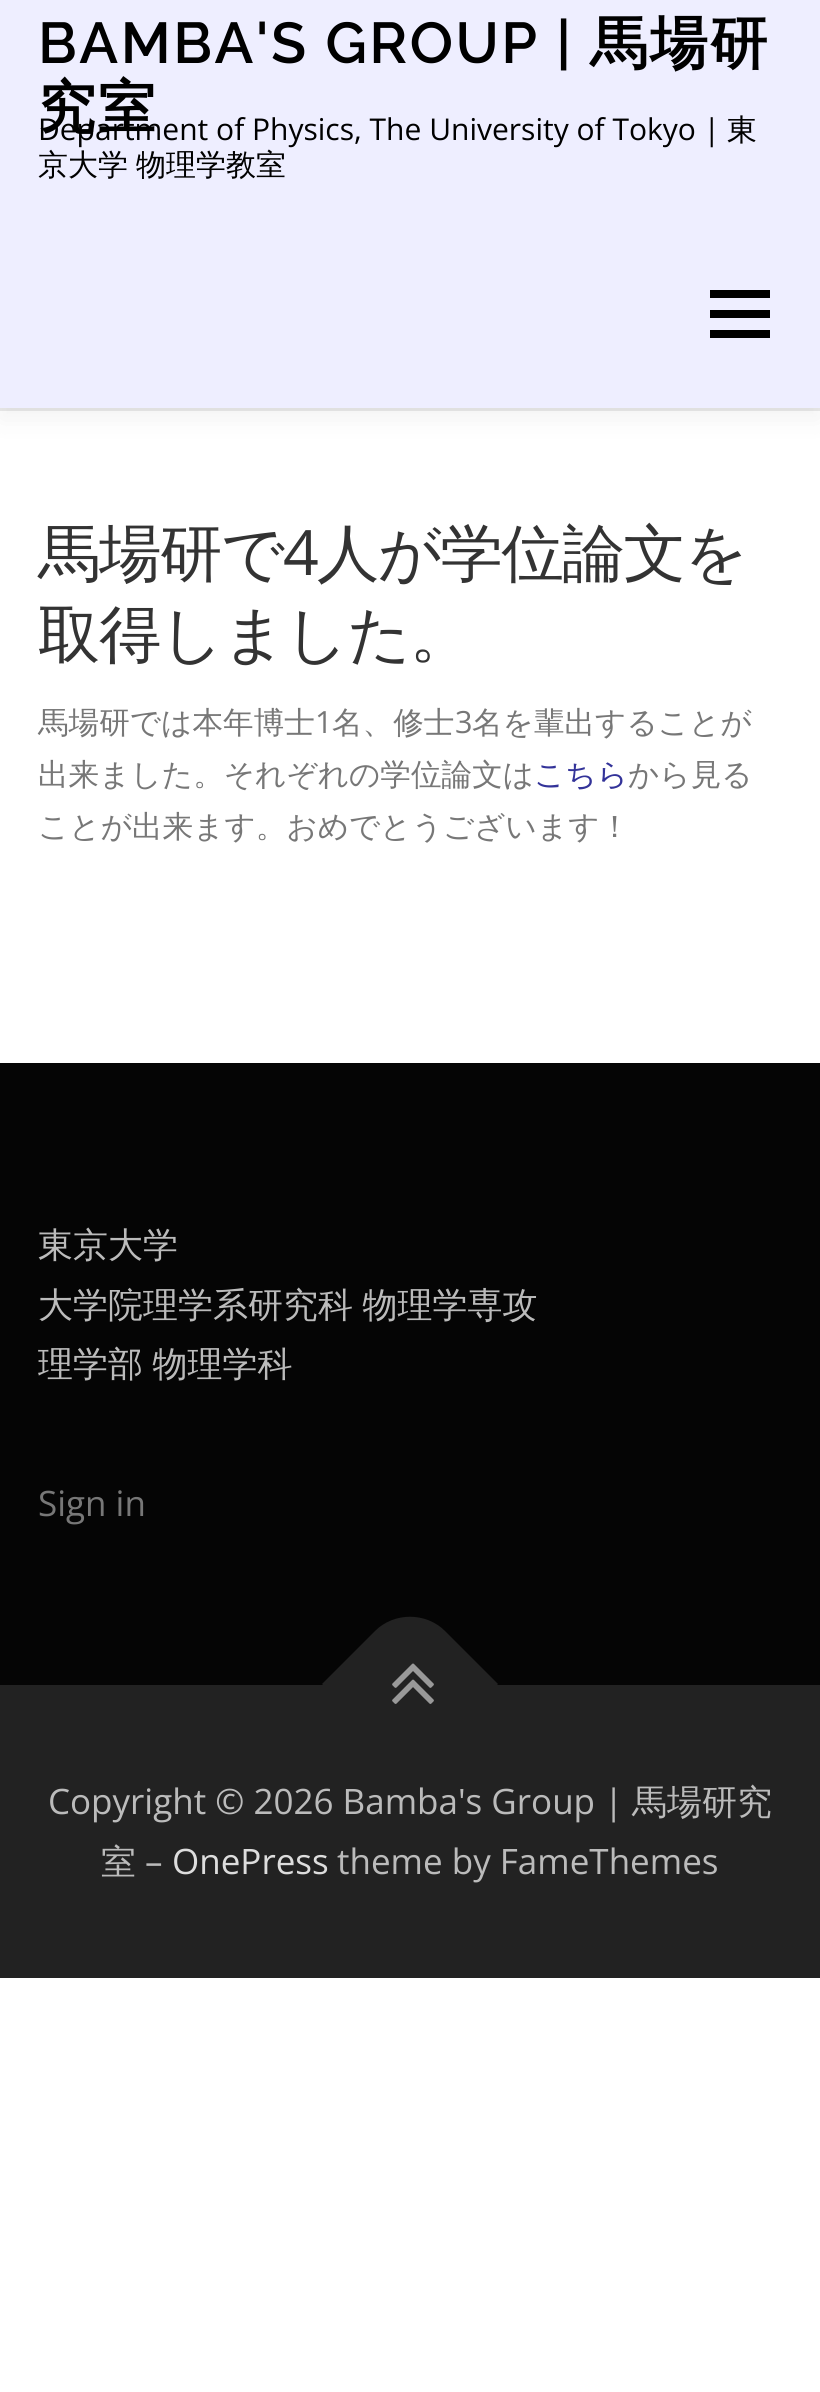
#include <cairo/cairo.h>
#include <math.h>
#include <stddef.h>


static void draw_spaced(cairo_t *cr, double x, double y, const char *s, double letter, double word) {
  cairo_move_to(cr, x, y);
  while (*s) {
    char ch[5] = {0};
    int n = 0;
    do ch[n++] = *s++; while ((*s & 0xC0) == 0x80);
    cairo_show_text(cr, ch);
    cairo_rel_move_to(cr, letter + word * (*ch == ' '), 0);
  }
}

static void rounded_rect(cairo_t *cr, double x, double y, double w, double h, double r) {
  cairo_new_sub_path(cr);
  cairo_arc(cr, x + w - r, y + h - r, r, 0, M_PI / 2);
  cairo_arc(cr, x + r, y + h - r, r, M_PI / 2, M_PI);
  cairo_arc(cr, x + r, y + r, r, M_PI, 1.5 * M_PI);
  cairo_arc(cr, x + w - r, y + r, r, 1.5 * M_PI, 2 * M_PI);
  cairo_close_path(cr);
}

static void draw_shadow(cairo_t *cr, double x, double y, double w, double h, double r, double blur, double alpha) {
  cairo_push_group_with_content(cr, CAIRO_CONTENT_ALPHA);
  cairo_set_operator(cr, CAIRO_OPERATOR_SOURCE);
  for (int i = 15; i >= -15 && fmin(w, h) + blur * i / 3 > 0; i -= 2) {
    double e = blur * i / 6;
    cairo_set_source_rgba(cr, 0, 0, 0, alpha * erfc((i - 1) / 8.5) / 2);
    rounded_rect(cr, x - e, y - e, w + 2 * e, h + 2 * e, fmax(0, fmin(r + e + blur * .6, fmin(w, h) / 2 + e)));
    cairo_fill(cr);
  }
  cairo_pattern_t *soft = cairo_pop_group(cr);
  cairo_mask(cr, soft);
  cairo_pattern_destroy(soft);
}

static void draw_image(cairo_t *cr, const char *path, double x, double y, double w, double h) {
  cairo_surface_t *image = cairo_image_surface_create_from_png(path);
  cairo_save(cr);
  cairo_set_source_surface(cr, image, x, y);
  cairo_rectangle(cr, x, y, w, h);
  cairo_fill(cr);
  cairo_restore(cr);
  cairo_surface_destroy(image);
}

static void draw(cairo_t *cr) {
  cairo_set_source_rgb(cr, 1, 1, 1);
  cairo_paint(cr);
  cairo_set_source_rgb(cr, 233 / 255.0, 233 / 255.0, 233 / 255.0);
  cairo_rectangle(cr, 0, 408, 820, 3);
  cairo_fill(cr);
  cairo_set_source_rgb(cr, 50 / 255.0, 50 / 255.0, 50 / 255.0);
  draw_shadow(cr, 0, 13, 820, 407, 0, 12.5, 0.06);
  cairo_set_source_rgb(cr, 238 / 255.0, 238 / 255.0, 1);
  cairo_rectangle(cr, 0, 0, 820, 408);
  cairo_fill(cr);
  cairo_set_source_rgb(cr, 0, 0, 0);
  cairo_rectangle(cr, 710, 310, 60, 8);
  cairo_fill(cr);
  cairo_rectangle(cr, 710, 290, 60, 8);
  cairo_fill(cr);
  cairo_rectangle(cr, 710, 330, 60, 8);
  cairo_fill(cr);
  cairo_set_source_rgb(cr, 5 / 255.0, 5 / 255.0, 5 / 255.0);
  cairo_rectangle(cr, 0, 1063, 820, 622);
  cairo_fill(cr);
  cairo_set_source_rgb(cr, 34 / 255.0, 34 / 255.0, 34 / 255.0);
  cairo_rectangle(cr, 0, 1685, 820, 293);
  cairo_fill(cr);
  cairo_new_path(cr);
  cairo_move_to(cr, 322, 1684);
  cairo_line_to(cr, 375, 1631);
  cairo_curve_to(cr, 394, 1612, 426, 1612, 445, 1631);
  cairo_line_to(cr, 498, 1684);
  cairo_line_to(cr, 410, 1772);
  cairo_close_path(cr);
  cairo_fill(cr);
  draw_image(cr, "images/1.png", 392, 1663, 42, 41);
  cairo_select_font_face(cr, "Raleway SemiBold", CAIRO_FONT_SLANT_NORMAL, CAIRO_FONT_WEIGHT_NORMAL);
  cairo_set_font_size(cr, 57.5);
  cairo_set_source_rgb(cr, 0, 0, 0);
  draw_spaced(cr, 38, 63, "BAMBA'S GROUP |", 2.5, 0);
  cairo_select_font_face(cr, "WenQuanYi Zen Hei", CAIRO_FONT_SLANT_NORMAL, CAIRO_FONT_WEIGHT_BOLD);
  draw_spaced(cr, 590, 63, "馬場研", 2.5, 0);
  draw_spaced(cr, 38, 127, "究室", 2.5, 0);
  cairo_select_font_face(cr, "Open Sans", CAIRO_FONT_SLANT_NORMAL, CAIRO_FONT_WEIGHT_NORMAL);
  cairo_set_font_size(cr, 30);
  cairo_move_to(cr, 38, 140);
  cairo_show_text(cr, "Department of Physics, The University of Tokyo |");
  cairo_select_font_face(cr, "WenQuanYi Zen Hei Medium", CAIRO_FONT_SLANT_NORMAL, CAIRO_FONT_WEIGHT_NORMAL);
  cairo_move_to(cr, 727, 140);
  cairo_show_text(cr, "東");
  draw_spaced(cr, 38, 175, "京大学 物理学教室", 0, -1);
  cairo_set_font_size(cr, 62.5);
  cairo_set_source_rgb(cr, 51 / 255.0, 51 / 255.0, 51 / 255.0);
  draw_spaced(cr, 38, 575, "馬場研で", -1.5, 0);
  cairo_select_font_face(cr, "Open Sans", CAIRO_FONT_SLANT_NORMAL, CAIRO_FONT_WEIGHT_NORMAL);
  draw_spaced(cr, 283, 575, "4", -1.5, 0);
  cairo_select_font_face(cr, "WenQuanYi Zen Hei Medium", CAIRO_FONT_SLANT_NORMAL, CAIRO_FONT_WEIGHT_NORMAL);
  draw_spaced(cr, 317, 575, "人が学位論文を", -1.5, 0);
  draw_spaced(cr, 38, 656, "取得しました。", -1.5, 0);
  cairo_set_font_size(cr, 30.6);
  cairo_set_source_rgb(cr, 119 / 255.0, 119 / 255.0, 119 / 255.0);
  cairo_move_to(cr, 38, 733);
  cairo_show_text(cr, "馬場研では本年博士");
  cairo_select_font_face(cr, "Open Sans", CAIRO_FONT_SLANT_NORMAL, CAIRO_FONT_WEIGHT_NORMAL);
  cairo_move_to(cr, 315, 733);
  cairo_show_text(cr, "1");
  cairo_select_font_face(cr, "WenQuanYi Zen Hei Medium", CAIRO_FONT_SLANT_NORMAL, CAIRO_FONT_WEIGHT_NORMAL);
  cairo_move_to(cr, 332, 733);
  cairo_show_text(cr, "名、修士");
  cairo_select_font_face(cr, "Open Sans", CAIRO_FONT_SLANT_NORMAL, CAIRO_FONT_WEIGHT_NORMAL);
  cairo_move_to(cr, 455, 733);
  cairo_show_text(cr, "3");
  cairo_select_font_face(cr, "WenQuanYi Zen Hei Medium", CAIRO_FONT_SLANT_NORMAL, CAIRO_FONT_WEIGHT_NORMAL);
  cairo_move_to(cr, 472, 733);
  cairo_show_text(cr, "名を輩出することが");
  cairo_move_to(cr, 38, 785);
  cairo_show_text(cr, "出来ました。それぞれの学位論文は");
  cairo_set_source_rgb(cr, 51 / 255.0, 51 / 255.0, 153 / 255.0);
  cairo_move_to(cr, 534, 785);
  cairo_show_text(cr, "こちら");
  cairo_set_source_rgb(cr, 119 / 255.0, 119 / 255.0, 119 / 255.0);
  cairo_move_to(cr, 628, 785);
  cairo_show_text(cr, "から見る");
  cairo_move_to(cr, 38, 837);
  cairo_show_text(cr, "ことが出来ます。おめでとうございます！");
  cairo_set_font_size(cr, 35);
  cairo_set_source_rgb(cr, 187 / 255.0, 187 / 255.0, 187 / 255.0);
  cairo_move_to(cr, 38, 1257);
  cairo_show_text(cr, "東京大学");
  draw_spaced(cr, 38, 1317, "大学院理学系研究科 物理学専攻", 0, -1);
  draw_spaced(cr, 38, 1376, "理学部 物理学科", 0, -1);
  cairo_select_font_face(cr, "Open Sans", CAIRO_FONT_SLANT_NORMAL, CAIRO_FONT_WEIGHT_NORMAL);
  cairo_set_source_rgb(cr, 119 / 255.0, 119 / 255.0, 119 / 255.0);
  cairo_move_to(cr, 38, 1516);
  cairo_show_text(cr, "Sign in");
  cairo_set_source_rgb(cr, 187 / 255.0, 187 / 255.0, 187 / 255.0);
  cairo_move_to(cr, 48, 1814);
  cairo_show_text(cr, "Copyright © 2026 Bamba's Group |");
  cairo_select_font_face(cr, "WenQuanYi Zen Hei Medium", CAIRO_FONT_SLANT_NORMAL, CAIRO_FONT_WEIGHT_NORMAL);
  cairo_move_to(cr, 632, 1814);
  cairo_show_text(cr, "馬場研究");
  cairo_move_to(cr, 101, 1874);
  cairo_show_text(cr, "室");
  cairo_select_font_face(cr, "Open Sans", CAIRO_FONT_SLANT_NORMAL, CAIRO_FONT_WEIGHT_NORMAL);
  cairo_move_to(cr, 145, 1874);
  cairo_show_text(cr, "–");
  cairo_set_source_rgb(cr, 221 / 255.0, 221 / 255.0, 221 / 255.0);
  cairo_move_to(cr, 172, 1874);
  cairo_show_text(cr, "OnePress");
  cairo_set_source_rgb(cr, 187 / 255.0, 187 / 255.0, 187 / 255.0);
  cairo_move_to(cr, 337, 1874);
  cairo_show_text(cr, "theme by FameThemes");
}

int main(void) {
  cairo_surface_t *surface = cairo_image_surface_create(CAIRO_FORMAT_RGB24, 820, 2392);
  cairo_t *cr = cairo_create(surface);
  cairo_font_options_t *options = cairo_font_options_create();
  cairo_font_options_set_hint_metrics(options, CAIRO_HINT_METRICS_OFF);
  cairo_font_options_set_hint_style(options, CAIRO_HINT_STYLE_NONE);
  cairo_set_font_options(cr, options);
  cairo_set_miter_limit(cr, 4);
  draw(cr);
  cairo_surface_write_to_png(surface, "out.png");
  cairo_font_options_destroy(options);
  cairo_destroy(cr);
  cairo_surface_destroy(surface);
  return 0;
}
